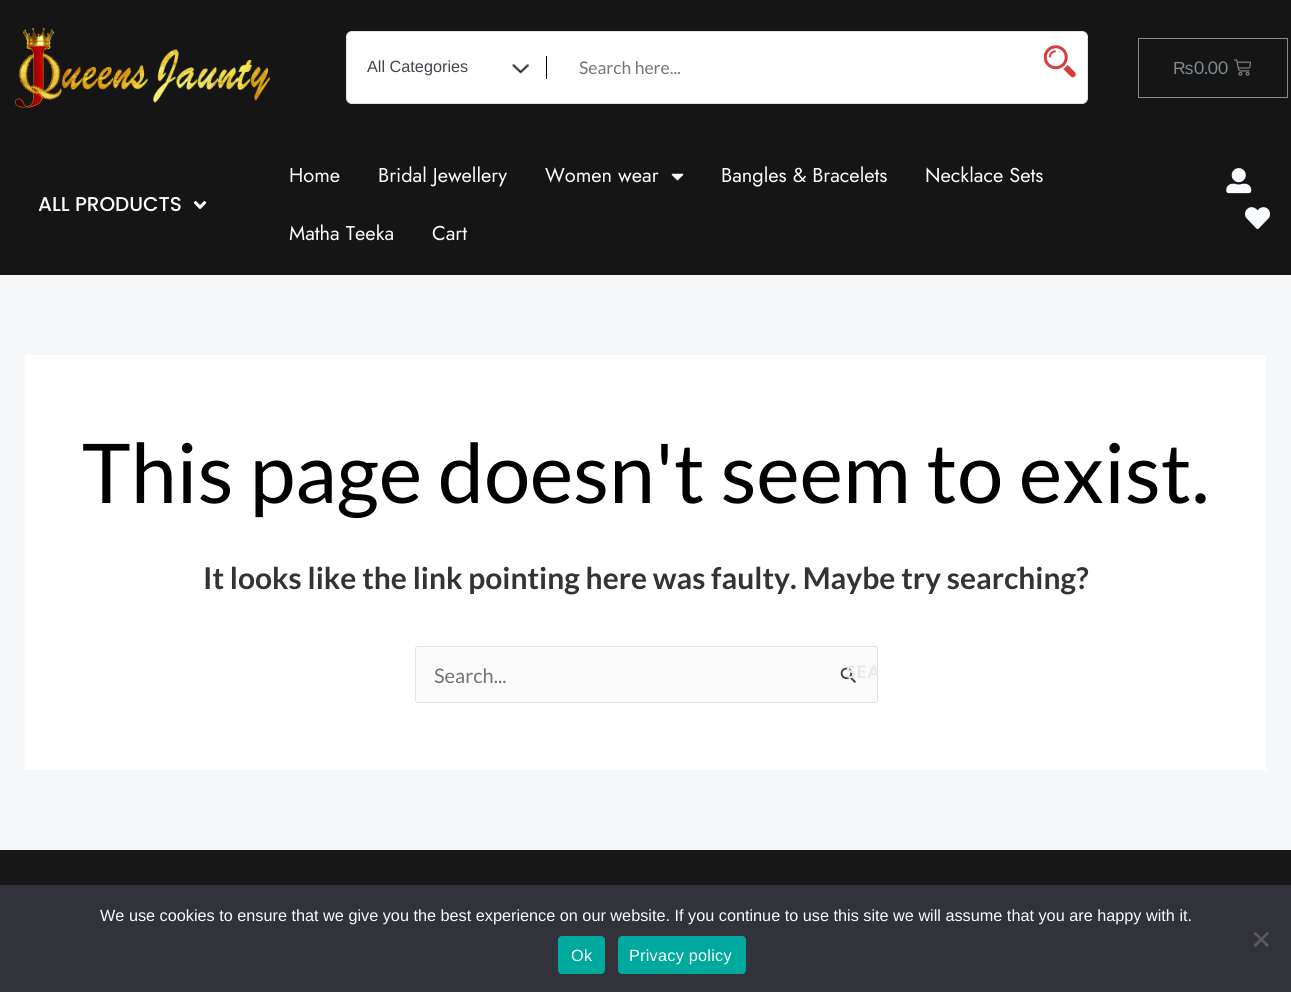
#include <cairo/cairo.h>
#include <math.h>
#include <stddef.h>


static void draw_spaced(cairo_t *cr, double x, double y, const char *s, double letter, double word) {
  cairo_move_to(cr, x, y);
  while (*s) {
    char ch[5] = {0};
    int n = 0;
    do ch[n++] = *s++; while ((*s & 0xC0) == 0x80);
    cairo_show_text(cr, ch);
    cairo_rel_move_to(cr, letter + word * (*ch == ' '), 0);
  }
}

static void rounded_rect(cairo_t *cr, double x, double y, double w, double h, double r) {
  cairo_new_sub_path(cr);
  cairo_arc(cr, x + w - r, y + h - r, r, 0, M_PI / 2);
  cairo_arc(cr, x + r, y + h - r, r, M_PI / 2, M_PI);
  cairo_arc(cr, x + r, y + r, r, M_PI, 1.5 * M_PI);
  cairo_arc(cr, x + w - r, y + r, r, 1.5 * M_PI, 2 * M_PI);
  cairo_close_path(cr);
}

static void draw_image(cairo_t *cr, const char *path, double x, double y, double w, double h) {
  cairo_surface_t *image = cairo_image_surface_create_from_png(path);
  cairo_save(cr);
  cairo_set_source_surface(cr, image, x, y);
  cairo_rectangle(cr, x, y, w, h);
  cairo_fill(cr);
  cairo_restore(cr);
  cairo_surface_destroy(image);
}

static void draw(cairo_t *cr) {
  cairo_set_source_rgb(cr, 245 / 255.0, 247 / 255.0, 249 / 255.0);
  cairo_paint(cr);
  cairo_set_source_rgb(cr, 21 / 255.0, 21 / 255.0, 21 / 255.0);
  cairo_rectangle(cr, 0, 0, 1291, 275);
  cairo_fill(cr);
  draw_image(cr, "images/1.png", 15, 27, 256, 81);
  cairo_set_source_rgb(cr, 1, 1, 1);
  rounded_rect(cr, 346.5, 31.5, 741, 72, 5.5);
  cairo_fill_preserve(cr);
  cairo_set_source_rgb(cr, 226 / 255.0, 225 / 255.0, 230 / 255.0);
  cairo_set_line_width(cr, 1);
  cairo_stroke(cr);
  draw_image(cr, "images/2.png", 512, 64, 17, 10);
  cairo_set_source_rgb(cr, 0, 0, 0);
  cairo_rectangle(cr, 546, 56, 1, 23);
  cairo_fill(cr);
  draw_image(cr, "images/3.png", 1044, 45, 32, 33);
  cairo_rectangle(cr, 1138.5, 38.5, 149, 59);
  cairo_set_source_rgb(cr, 129 / 255.0, 138 / 255.0, 145 / 255.0);
  cairo_stroke(cr);
  draw_image(cr, "images/4.png", 1234, 59, 17, 17);
  draw_image(cr, "images/5.png", 193, 201, 14, 8);
  draw_image(cr, "images/6.png", 671, 173, 13, 8);
  draw_image(cr, "images/7.png", 1226, 168, 26, 26);
  draw_image(cr, "images/8.png", 1245, 207, 25, 22);
  cairo_set_source_rgb(cr, 1, 1, 1);
  cairo_rectangle(cr, 25, 355, 1241, 415);
  cairo_fill(cr);
  cairo_set_source_rgb(cr, 250 / 255.0, 250 / 255.0, 250 / 255.0);
  rounded_rect(cr, 415.5, 646.5, 462, 56, 2);
  cairo_fill_preserve(cr);
  cairo_set_source_rgb(cr, 226 / 255.0, 226 / 255.0, 226 / 255.0);
  cairo_stroke(cr);
  draw_image(cr, "images/9.png", 840, 667, 16, 16);
  cairo_set_source_rgb(cr, 24 / 255.0, 24 / 255.0, 24 / 255.0);
  cairo_rectangle(cr, 0, 850, 1291, 35);
  cairo_fill(cr);
  cairo_set_source_rgb(cr, 50 / 255.0, 50 / 255.0, 58 / 255.0);
  cairo_rectangle(cr, 0, 885, 1291, 107);
  cairo_fill(cr);
  cairo_set_source_rgb(cr, 89 / 255.0, 89 / 255.0, 93 / 255.0);
  cairo_new_path(cr);
  cairo_move_to(cr, 1267, 932);
  cairo_line_to(cr, 1269, 933.5);
  cairo_line_to(cr, 1255.5, 947);
  cairo_line_to(cr, 1253.5, 945);
  cairo_close_path(cr);
  cairo_fill(cr);
  cairo_new_path(cr);
  cairo_move_to(cr, 1253.5, 933.5);
  cairo_line_to(cr, 1255.5, 932);
  cairo_line_to(cr, 1269, 945);
  cairo_line_to(cr, 1267, 947);
  cairo_close_path(cr);
  cairo_fill(cr);
  cairo_set_source_rgb(cr, 0, 169 / 255.0, 157 / 255.0);
  rounded_rect(cr, 558, 936, 47, 38, 4);
  cairo_fill(cr);
  rounded_rect(cr, 618, 936, 128, 38, 4);
  cairo_fill(cr);
  cairo_select_font_face(cr, "Liberation Sans", CAIRO_FONT_SLANT_NORMAL, CAIRO_FONT_WEIGHT_NORMAL);
  cairo_set_font_size(cr, 16.25);
  cairo_set_source_rgb(cr, 67 / 255.0, 69 / 255.0, 75 / 255.0);
  cairo_move_to(cr, 367, 72);
  cairo_show_text(cr, "All Categories");
  cairo_select_font_face(cr, "Lato", CAIRO_FONT_SLANT_NORMAL, CAIRO_FONT_WEIGHT_NORMAL);
  cairo_set_font_size(cr, 17.5);
  cairo_set_source_rgb(cr, 117 / 255.0, 117 / 255.0, 117 / 255.0);
  cairo_move_to(cr, 579, 74);
  cairo_show_text(cr, "Search here...");
  cairo_select_font_face(cr, "Liberation Sans", CAIRO_FONT_SLANT_NORMAL, CAIRO_FONT_WEIGHT_NORMAL);
  cairo_set_source_rgb(cr, 129 / 255.0, 138 / 255.0, 145 / 255.0);
  cairo_move_to(cr, 1173, 74);
  cairo_show_text(cr, "₨");
  cairo_select_font_face(cr, "Lato", CAIRO_FONT_SLANT_NORMAL, CAIRO_FONT_WEIGHT_NORMAL);
  cairo_move_to(cr, 1194, 74);
  cairo_show_text(cr, "0.00");
  cairo_select_font_face(cr, "Poppins Medium", CAIRO_FONT_SLANT_NORMAL, CAIRO_FONT_WEIGHT_NORMAL);
  cairo_set_font_size(cr, 20);
  cairo_set_source_rgb(cr, 251 / 255.0, 252 / 255.0, 1);
  cairo_move_to(cr, 38, 211);
  cairo_show_text(cr, "ALL PRODUCTS");
  cairo_select_font_face(cr, "Jost", CAIRO_FONT_SLANT_NORMAL, CAIRO_FONT_WEIGHT_NORMAL);
  cairo_move_to(cr, 289, 182);
  cairo_show_text(cr, "Home");
  cairo_move_to(cr, 378, 182);
  cairo_show_text(cr, "Bridal Jewellery");
  cairo_move_to(cr, 545, 182);
  cairo_show_text(cr, "Women wear");
  cairo_move_to(cr, 721, 182);
  cairo_show_text(cr, "Bangles & Bracelets");
  cairo_move_to(cr, 925, 182);
  cairo_show_text(cr, "Necklace Sets");
  cairo_move_to(cr, 289, 240);
  cairo_show_text(cr, "Matha Teeka");
  cairo_move_to(cr, 432, 240);
  cairo_show_text(cr, "Cart");
  cairo_select_font_face(cr, "Lato", CAIRO_FONT_SLANT_NORMAL, CAIRO_FONT_WEIGHT_NORMAL);
  cairo_set_font_size(cr, 82.5);
  cairo_set_source_rgb(cr, 0, 0, 0);
  cairo_move_to(cr, 82, 503);
  cairo_show_text(cr, "This page doesn't seem to exist.");
  cairo_select_font_face(cr, "Lato", CAIRO_FONT_SLANT_NORMAL, CAIRO_FONT_WEIGHT_BOLD);
  cairo_set_font_size(cr, 30);
  cairo_set_source_rgb(cr, 51 / 255.0, 51 / 255.0, 51 / 255.0);
  cairo_move_to(cr, 203, 589);
  cairo_show_text(cr, "It looks like the link pointing here was faulty. Maybe try searching?");
  cairo_select_font_face(cr, "Lato", CAIRO_FONT_SLANT_NORMAL, CAIRO_FONT_WEIGHT_NORMAL);
  cairo_set_font_size(cr, 20);
  cairo_set_source_rgb(cr, 117 / 255.0, 117 / 255.0, 117 / 255.0);
  cairo_move_to(cr, 434, 683);
  cairo_show_text(cr, "Search...");
  cairo_save(cr);
  rounded_rect(cr, 821, 646, 57, 50, 2.5);
  cairo_clip(cr);
  cairo_select_font_face(cr, "Lato", CAIRO_FONT_SLANT_NORMAL, CAIRO_FONT_WEIGHT_BOLD);
  cairo_set_font_size(cr, 17.5);
  cairo_set_source_rgb(cr, 232 / 255.0, 232 / 255.0, 232 / 255.0);
  draw_spaced(cr, 846, 678, "SEA", 1, 0);
  cairo_restore(cr);
  cairo_select_font_face(cr, "Liberation Sans", CAIRO_FONT_SLANT_NORMAL, CAIRO_FONT_WEIGHT_NORMAL);
  cairo_set_font_size(cr, 16.25);
  cairo_set_source_rgb(cr, 251 / 255.0, 252 / 255.0, 1);
  cairo_move_to(cr, 100, 921);
  cairo_show_text(cr, "We use cookies to ensure that we give you the best experience on our website. If you continue to use this site we will assume that you are happy with it.");
  draw_spaced(cr, 571, 961, "Ok", 0.25, 0);
  draw_spaced(cr, 629, 961, "Privacy policy", 0.25, 0);
}

int main(void) {
  cairo_surface_t *surface = cairo_image_surface_create(CAIRO_FORMAT_RGB24, 1291, 992);
  cairo_t *cr = cairo_create(surface);
  cairo_font_options_t *options = cairo_font_options_create();
  cairo_font_options_set_hint_metrics(options, CAIRO_HINT_METRICS_OFF);
  cairo_font_options_set_hint_style(options, CAIRO_HINT_STYLE_NONE);
  cairo_set_font_options(cr, options);
  cairo_set_miter_limit(cr, 4);
  draw(cr);
  cairo_surface_write_to_png(surface, "out.png");
  cairo_font_options_destroy(options);
  cairo_destroy(cr);
  cairo_surface_destroy(surface);
  return 0;
}
